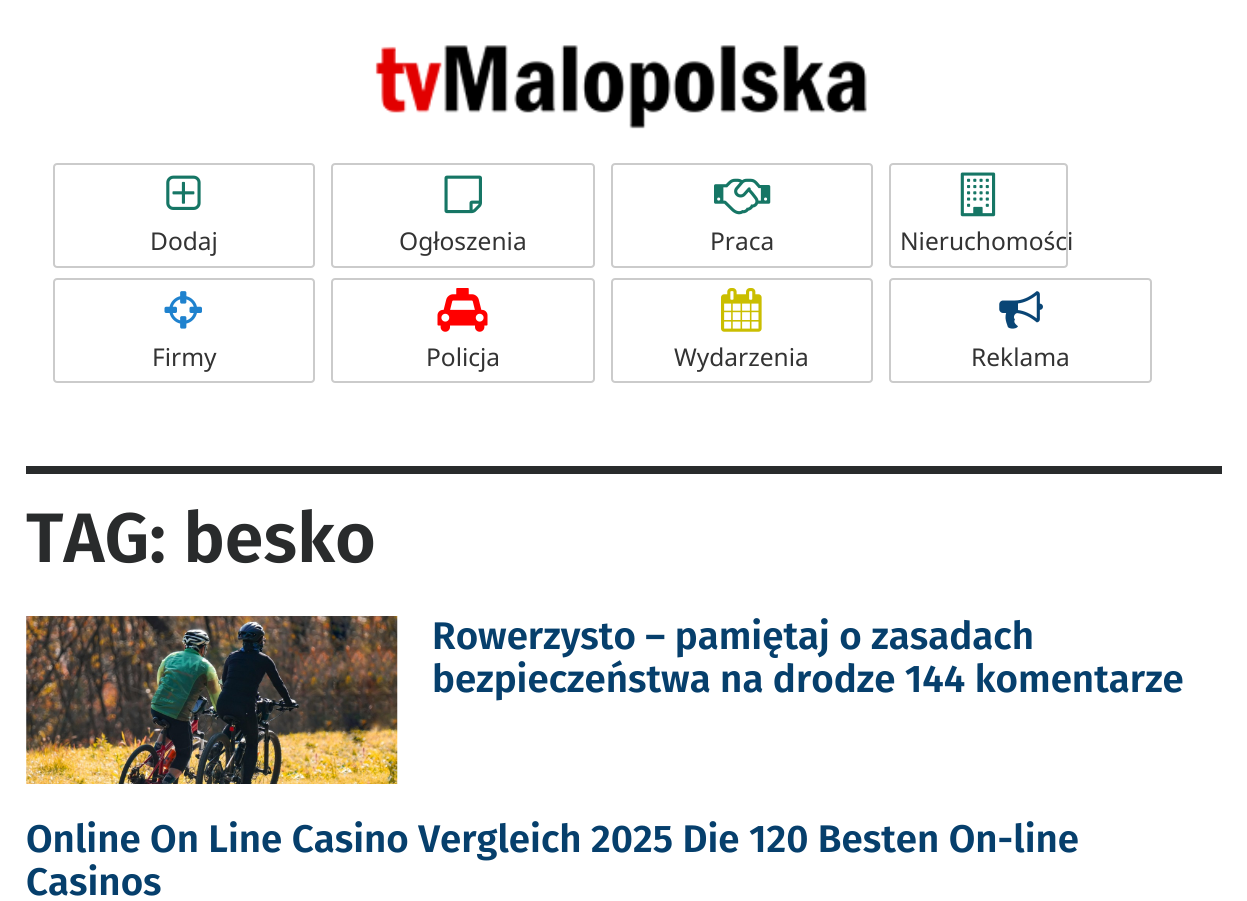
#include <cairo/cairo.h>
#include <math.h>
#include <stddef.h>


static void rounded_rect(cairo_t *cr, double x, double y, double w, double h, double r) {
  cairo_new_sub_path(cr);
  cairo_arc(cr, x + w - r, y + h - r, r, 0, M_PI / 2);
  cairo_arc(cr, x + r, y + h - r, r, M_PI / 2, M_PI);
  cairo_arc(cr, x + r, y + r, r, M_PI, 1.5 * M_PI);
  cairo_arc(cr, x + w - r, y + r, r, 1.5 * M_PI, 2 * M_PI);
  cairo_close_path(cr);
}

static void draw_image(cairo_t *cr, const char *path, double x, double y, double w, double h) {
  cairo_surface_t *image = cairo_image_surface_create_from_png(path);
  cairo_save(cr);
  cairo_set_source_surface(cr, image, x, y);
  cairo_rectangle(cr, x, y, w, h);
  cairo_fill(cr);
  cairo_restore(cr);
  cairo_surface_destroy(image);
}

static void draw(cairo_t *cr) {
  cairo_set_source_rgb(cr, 1, 1, 1);
  cairo_paint(cr);
  draw_image(cr, "images/1.png", 375, 45, 492, 84);
  rounded_rect(cr, 54, 164, 260, 103, 3);
  cairo_set_source_rgb(cr, 203 / 255.0, 203 / 255.0, 203 / 255.0);
  cairo_stroke(cr);
  draw_image(cr, "images/2.png", 166, 175, 35, 35);
  rounded_rect(cr, 332, 164, 262, 103, 3);
  cairo_stroke(cr);
  draw_image(cr, "images/3.png", 444, 175, 38, 39);
  rounded_rect(cr, 612, 164, 260, 103, 3);
  cairo_stroke(cr);
  draw_image(cr, "images/4.png", 714, 178, 57, 37);
  rounded_rect(cr, 890, 164, 177, 103, 3);
  cairo_stroke(cr);
  draw_image(cr, "images/5.png", 960, 172, 36, 45);
  rounded_rect(cr, 54, 279, 260, 103, 3);
  cairo_stroke(cr);
  draw_image(cr, "images/6.png", 164, 291, 38, 38);
  rounded_rect(cr, 332, 279, 262, 103, 3);
  cairo_stroke(cr);
  draw_image(cr, "images/7.png", 437, 288, 51, 44);
  rounded_rect(cr, 612, 279, 260, 103, 3);
  cairo_stroke(cr);
  draw_image(cr, "images/8.png", 721, 288, 41, 44);
  rounded_rect(cr, 890, 279, 261, 103, 3);
  cairo_stroke(cr);
  draw_image(cr, "images/9.png", 999, 291, 44, 38);
  cairo_set_source_rgb(cr, 41 / 255.0, 43 / 255.0, 44 / 255.0);
  cairo_rectangle(cr, 26, 466, 1196, 8);
  cairo_fill(cr);
  draw_image(cr, "images/10.png", 26, 616, 372, 168);
  cairo_select_font_face(cr, "Noto Sans", CAIRO_FONT_SLANT_NORMAL, CAIRO_FONT_WEIGHT_NORMAL);
  cairo_set_font_size(cr, 24.5);
  cairo_set_source_rgb(cr, 51 / 255.0, 51 / 255.0, 51 / 255.0);
  cairo_move_to(cr, 150, 250);
  cairo_show_text(cr, "Dodaj");
  cairo_move_to(cr, 399, 250);
  cairo_show_text(cr, "Ogłoszenia");
  cairo_move_to(cr, 710, 250);
  cairo_show_text(cr, "Praca");
  cairo_move_to(cr, 900, 250);
  cairo_show_text(cr, "Nieruchomości");
  cairo_move_to(cr, 152, 366);
  cairo_show_text(cr, "Firmy");
  cairo_move_to(cr, 426, 366);
  cairo_show_text(cr, "Policja");
  cairo_move_to(cr, 674, 366);
  cairo_show_text(cr, "Wydarzenia");
  cairo_move_to(cr, 971, 366);
  cairo_show_text(cr, "Reklama");
  cairo_select_font_face(cr, "Fira Sans SemiBold", CAIRO_FONT_SLANT_NORMAL, CAIRO_FONT_WEIGHT_NORMAL);
  cairo_set_font_size(cr, 70);
  cairo_set_source_rgb(cr, 41 / 255.0, 43 / 255.0, 44 / 255.0);
  cairo_move_to(cr, 26, 562);
  cairo_show_text(cr, "TAG: besko");
  cairo_set_font_size(cr, 38.5);
  cairo_set_source_rgb(cr, 6 / 255.0, 63 / 255.0, 108 / 255.0);
  cairo_move_to(cr, 432, 649);
  cairo_show_text(cr, "Rowerzysto – pamiętaj o zasadach");
  cairo_move_to(cr, 432, 692);
  cairo_show_text(cr, "bezpieczeństwa na drodze 144 komentarze");
  cairo_move_to(cr, 26, 852);
  cairo_show_text(cr, "Online On Line Casino Vergleich 2025 Die 120 Besten On-line");
  cairo_move_to(cr, 26, 895);
  cairo_show_text(cr, "Casinos");
}

int main(void) {
  cairo_surface_t *surface = cairo_image_surface_create(CAIRO_FORMAT_RGB24, 1247, 901);
  cairo_t *cr = cairo_create(surface);
  cairo_font_options_t *options = cairo_font_options_create();
  cairo_font_options_set_hint_metrics(options, CAIRO_HINT_METRICS_OFF);
  cairo_font_options_set_hint_style(options, CAIRO_HINT_STYLE_NONE);
  cairo_set_font_options(cr, options);
  cairo_set_miter_limit(cr, 4);
  draw(cr);
  cairo_surface_write_to_png(surface, "out.png");
  cairo_font_options_destroy(options);
  cairo_destroy(cr);
  cairo_surface_destroy(surface);
  return 0;
}
